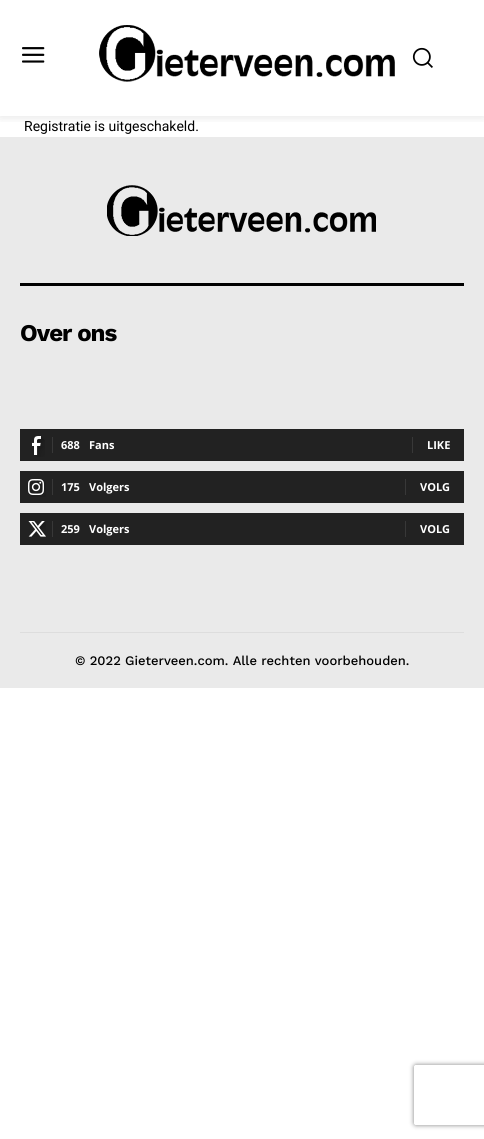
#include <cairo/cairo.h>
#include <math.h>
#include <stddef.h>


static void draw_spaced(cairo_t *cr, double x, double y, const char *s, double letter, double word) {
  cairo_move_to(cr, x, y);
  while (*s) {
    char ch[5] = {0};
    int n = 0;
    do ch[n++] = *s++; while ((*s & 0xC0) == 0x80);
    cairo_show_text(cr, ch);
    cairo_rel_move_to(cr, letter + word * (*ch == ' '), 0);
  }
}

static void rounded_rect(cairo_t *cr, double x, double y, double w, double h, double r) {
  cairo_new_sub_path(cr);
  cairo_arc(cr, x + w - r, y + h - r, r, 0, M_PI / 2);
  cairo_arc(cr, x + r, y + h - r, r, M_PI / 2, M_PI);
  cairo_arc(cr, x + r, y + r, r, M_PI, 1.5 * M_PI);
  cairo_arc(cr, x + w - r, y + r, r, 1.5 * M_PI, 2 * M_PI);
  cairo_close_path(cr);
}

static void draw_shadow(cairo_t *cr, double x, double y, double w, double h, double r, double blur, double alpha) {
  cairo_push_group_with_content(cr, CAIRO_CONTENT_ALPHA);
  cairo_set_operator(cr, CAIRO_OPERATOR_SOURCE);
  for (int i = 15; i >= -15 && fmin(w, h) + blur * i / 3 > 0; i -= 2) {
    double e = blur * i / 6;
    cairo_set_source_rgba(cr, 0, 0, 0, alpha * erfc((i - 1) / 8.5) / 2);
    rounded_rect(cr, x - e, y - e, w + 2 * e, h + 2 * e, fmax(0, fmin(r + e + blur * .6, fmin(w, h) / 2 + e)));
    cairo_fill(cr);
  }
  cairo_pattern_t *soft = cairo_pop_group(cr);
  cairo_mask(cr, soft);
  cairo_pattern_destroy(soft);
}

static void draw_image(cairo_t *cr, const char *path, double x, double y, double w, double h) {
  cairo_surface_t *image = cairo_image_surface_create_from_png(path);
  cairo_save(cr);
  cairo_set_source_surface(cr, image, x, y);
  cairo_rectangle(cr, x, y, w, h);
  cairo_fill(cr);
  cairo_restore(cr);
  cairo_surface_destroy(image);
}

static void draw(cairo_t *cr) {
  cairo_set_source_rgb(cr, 1, 1, 1);
  cairo_paint(cr);
  draw_image(cr, "images/1.png", 22, 47, 23, 16);
  draw_image(cr, "images/2.png", 99, 25, 296, 57);
  draw_image(cr, "images/3.png", 412, 47, 21, 21);
  cairo_save(cr);
  cairo_rectangle(cr, 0, 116, 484, 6);
  cairo_clip(cr);
  cairo_set_source_rgb(cr, 0, 0, 0);
  draw_shadow(cr, 0, 2, 484, 116, 0, 5, 0.09);
  cairo_restore(cr);
  cairo_set_source_rgb(cr, 234 / 255.0, 234 / 255.0, 234 / 255.0);
  cairo_rectangle(cr, 0, 137, 484, 551);
  cairo_fill(cr);
  cairo_set_source_rgb(cr, 0, 0, 0);
  cairo_rectangle(cr, 20, 283, 444, 3);
  cairo_fill(cr);
  draw_image(cr, "images/4.png", 107, 185, 269, 51);
  cairo_set_source_rgb(cr, 34 / 255.0, 34 / 255.0, 34 / 255.0);
  cairo_rectangle(cr, 20, 429, 444, 32);
  cairo_fill(cr);
  draw_image(cr, "images/5.png", 32, 436, 13, 21);
  cairo_set_source_rgb(cr, 56 / 255.0, 56 / 255.0, 56 / 255.0);
  cairo_rectangle(cr, 52, 437, 1, 16);
  cairo_fill(cr);
  cairo_rectangle(cr, 412, 437, 1, 16);
  cairo_fill(cr);
  cairo_set_source_rgb(cr, 34 / 255.0, 34 / 255.0, 34 / 255.0);
  cairo_rectangle(cr, 20, 471, 444, 32);
  cairo_fill(cr);
  draw_image(cr, "images/6.png", 28, 479, 18, 18);
  cairo_set_source_rgb(cr, 56 / 255.0, 56 / 255.0, 56 / 255.0);
  cairo_rectangle(cr, 52, 479, 1, 16);
  cairo_fill(cr);
  cairo_rectangle(cr, 405, 479, 1, 16);
  cairo_fill(cr);
  cairo_set_source_rgb(cr, 34 / 255.0, 34 / 255.0, 34 / 255.0);
  cairo_rectangle(cr, 20, 513, 444, 32);
  cairo_fill(cr);
  draw_image(cr, "images/7.png", 28, 521, 18, 16);
  cairo_set_source_rgb(cr, 56 / 255.0, 56 / 255.0, 56 / 255.0);
  cairo_rectangle(cr, 52, 521, 1, 16);
  cairo_fill(cr);
  cairo_rectangle(cr, 405, 521, 1, 16);
  cairo_fill(cr);
  cairo_set_source_rgb(cr, 221 / 255.0, 221 / 255.0, 221 / 255.0);
  cairo_rectangle(cr, 20, 632, 444, 1);
  cairo_fill(cr);
  cairo_save(cr);
  cairo_set_fill_rule(cr, CAIRO_FILL_RULE_EVEN_ODD);
  cairo_new_path(cr);
  cairo_move_to(cr, 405, 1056);
  cairo_line_to(cr, 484, 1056);
  cairo_line_to(cr, 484, 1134);
  cairo_line_to(cr, 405, 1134);
  cairo_close_path(cr);
  cairo_move_to(cr, 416, 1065);
  cairo_line_to(cr, 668, 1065);
  cairo_curve_to(cr, 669, 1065, 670, 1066, 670, 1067);
  cairo_line_to(cr, 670, 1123);
  cairo_curve_to(cr, 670, 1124, 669, 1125, 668, 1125);
  cairo_line_to(cr, 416, 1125);
  cairo_curve_to(cr, 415, 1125, 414, 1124, 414, 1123);
  cairo_line_to(cr, 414, 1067);
  cairo_curve_to(cr, 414, 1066, 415, 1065, 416, 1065);
  cairo_close_path(cr);
  cairo_clip(cr);
  cairo_set_source_rgb(cr, 128 / 255.0, 128 / 255.0, 128 / 255.0);
  draw_shadow(cr, 414, 1065, 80, 60, 2, 2.5, 1);
  cairo_restore(cr);
  cairo_select_font_face(cr, "Roboto", CAIRO_FONT_SLANT_NORMAL, CAIRO_FONT_WEIGHT_NORMAL);
  cairo_set_font_size(cr, 14);
  cairo_set_source_rgb(cr, 0, 0, 0);
  cairo_move_to(cr, 24, 131);
  cairo_show_text(cr, "Registratie is uitgeschakeld.");
  cairo_select_font_face(cr, "Work Sans", CAIRO_FONT_SLANT_NORMAL, CAIRO_FONT_WEIGHT_BOLD);
  cairo_set_font_size(cr, 24);
  draw_spaced(cr, 20, 341, "Over ons", -1, 0);
  cairo_select_font_face(cr, "Open Sans", CAIRO_FONT_SLANT_NORMAL, CAIRO_FONT_WEIGHT_BOLD);
  cairo_set_font_size(cr, 11);
  cairo_set_source_rgb(cr, 1, 1, 1);
  cairo_move_to(cr, 61, 449);
  cairo_show_text(cr, "688");
  cairo_move_to(cr, 89, 449);
  cairo_show_text(cr, "Fans");
  cairo_move_to(cr, 427, 449);
  cairo_show_text(cr, "LIKE");
  cairo_move_to(cr, 61, 491);
  cairo_show_text(cr, "175");
  cairo_move_to(cr, 89, 491);
  cairo_show_text(cr, "Volgers");
  cairo_move_to(cr, 420, 491);
  cairo_show_text(cr, "VOLG");
  cairo_move_to(cr, 61, 533);
  cairo_show_text(cr, "259");
  cairo_move_to(cr, 89, 533);
  cairo_show_text(cr, "Volgers");
  cairo_move_to(cr, 420, 533);
  cairo_show_text(cr, "VOLG");
  cairo_select_font_face(cr, "Work Sans Medium", CAIRO_FONT_SLANT_NORMAL, CAIRO_FONT_WEIGHT_NORMAL);
  cairo_set_font_size(cr, 13);
  cairo_set_source_rgb(cr, 0, 0, 0);
  cairo_move_to(cr, 75, 665);
  cairo_show_text(cr, "© 2022 Gieterveen.com. Alle rechten voorbehouden.");
}

int main(void) {
  cairo_surface_t *surface = cairo_image_surface_create(CAIRO_FORMAT_RGB24, 484, 1139);
  cairo_t *cr = cairo_create(surface);
  cairo_font_options_t *options = cairo_font_options_create();
  cairo_font_options_set_hint_metrics(options, CAIRO_HINT_METRICS_OFF);
  cairo_font_options_set_hint_style(options, CAIRO_HINT_STYLE_NONE);
  cairo_set_font_options(cr, options);
  cairo_set_miter_limit(cr, 4);
  draw(cr);
  cairo_surface_write_to_png(surface, "out.png");
  cairo_font_options_destroy(options);
  cairo_destroy(cr);
  cairo_surface_destroy(surface);
  return 0;
}
